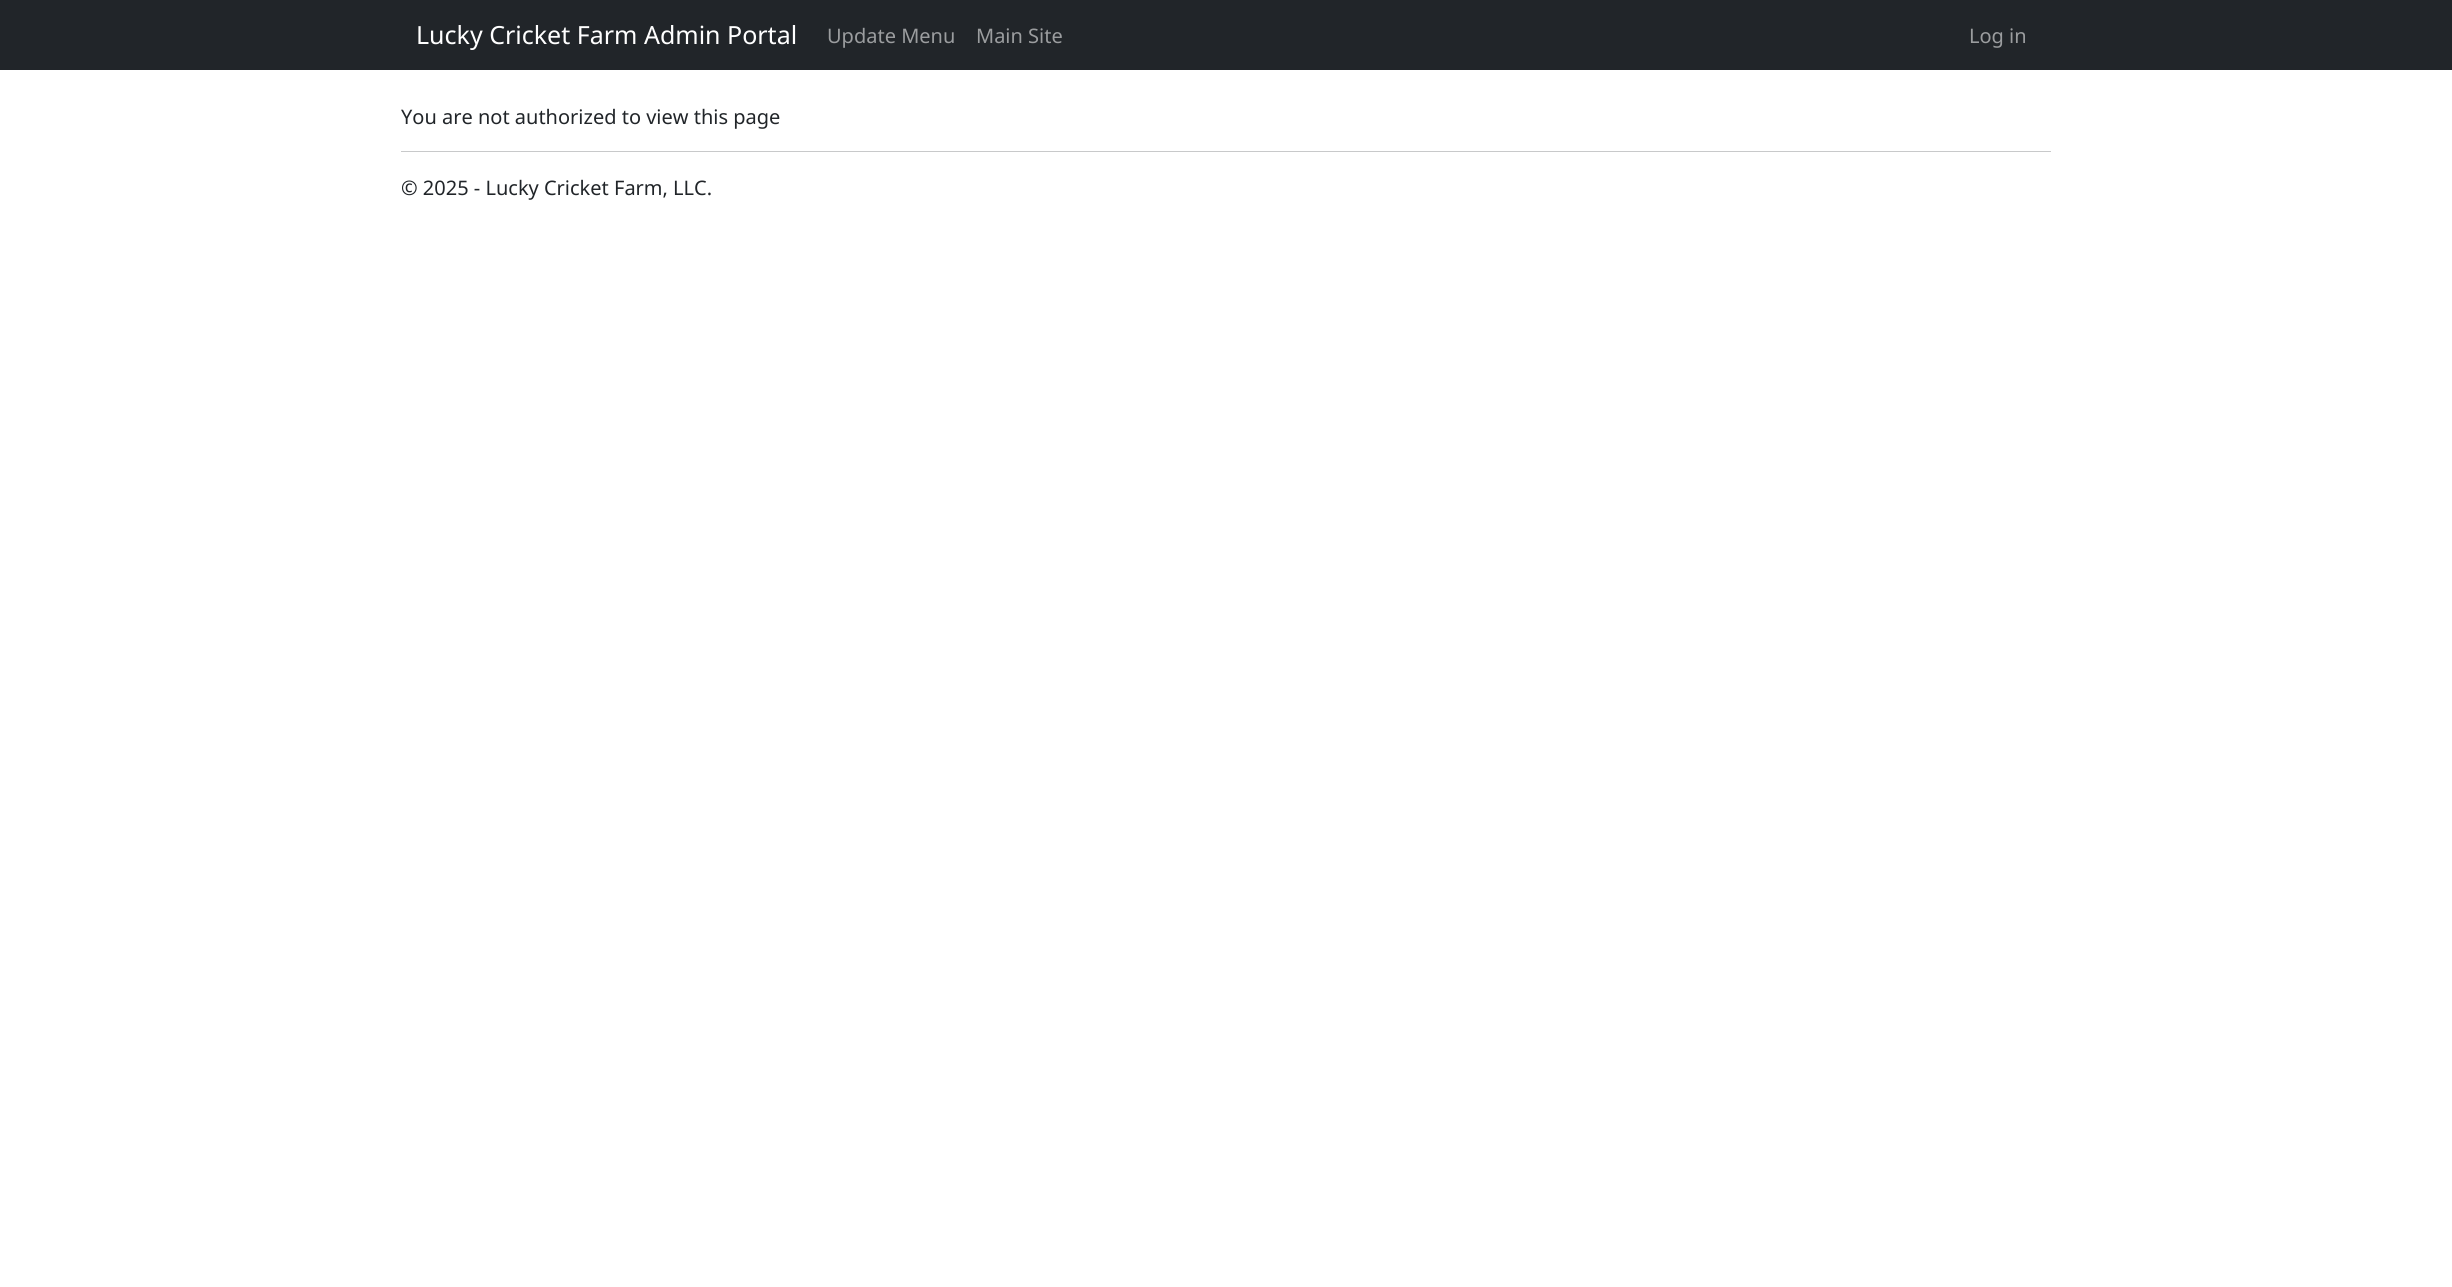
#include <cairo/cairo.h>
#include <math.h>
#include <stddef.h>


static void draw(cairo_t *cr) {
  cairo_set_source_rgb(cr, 1, 1, 1);
  cairo_paint(cr);
  cairo_set_source_rgb(cr, 33 / 255.0, 37 / 255.0, 41 / 255.0);
  cairo_rectangle(cr, 0, 0, 2452, 70);
  cairo_fill(cr);
  cairo_set_source_rgb(cr, 200 / 255.0, 201 / 255.0, 202 / 255.0);
  cairo_rectangle(cr, 401, 151, 1650, 1);
  cairo_fill(cr);
  cairo_select_font_face(cr, "Noto Sans", CAIRO_FONT_SLANT_NORMAL, CAIRO_FONT_WEIGHT_NORMAL);
  cairo_set_font_size(cr, 25);
  cairo_set_source_rgb(cr, 1, 1, 1);
  cairo_move_to(cr, 416, 44);
  cairo_show_text(cr, "Lucky Cricket Farm Admin Portal");
  cairo_set_font_size(cr, 20);
  cairo_set_source_rgb(cr, 155 / 255.0, 157 / 255.0, 159 / 255.0);
  cairo_move_to(cr, 827, 43);
  cairo_show_text(cr, "Update Menu");
  cairo_move_to(cr, 976, 43);
  cairo_show_text(cr, "Main Site");
  cairo_move_to(cr, 1969, 43);
  cairo_show_text(cr, "Log in");
  cairo_set_source_rgb(cr, 33 / 255.0, 37 / 255.0, 41 / 255.0);
  cairo_move_to(cr, 401, 124);
  cairo_show_text(cr, "You are not authorized to view this page");
  cairo_move_to(cr, 401, 195);
  cairo_show_text(cr, "© 2025 - Lucky Cricket Farm, LLC.");
}

int main(void) {
  cairo_surface_t *surface = cairo_image_surface_create(CAIRO_FORMAT_RGB24, 2452, 1287);
  cairo_t *cr = cairo_create(surface);
  cairo_font_options_t *options = cairo_font_options_create();
  cairo_font_options_set_hint_metrics(options, CAIRO_HINT_METRICS_OFF);
  cairo_font_options_set_hint_style(options, CAIRO_HINT_STYLE_NONE);
  cairo_set_font_options(cr, options);
  cairo_set_miter_limit(cr, 4);
  draw(cr);
  cairo_surface_write_to_png(surface, "out.png");
  cairo_font_options_destroy(options);
  cairo_destroy(cr);
  cairo_surface_destroy(surface);
  return 0;
}
